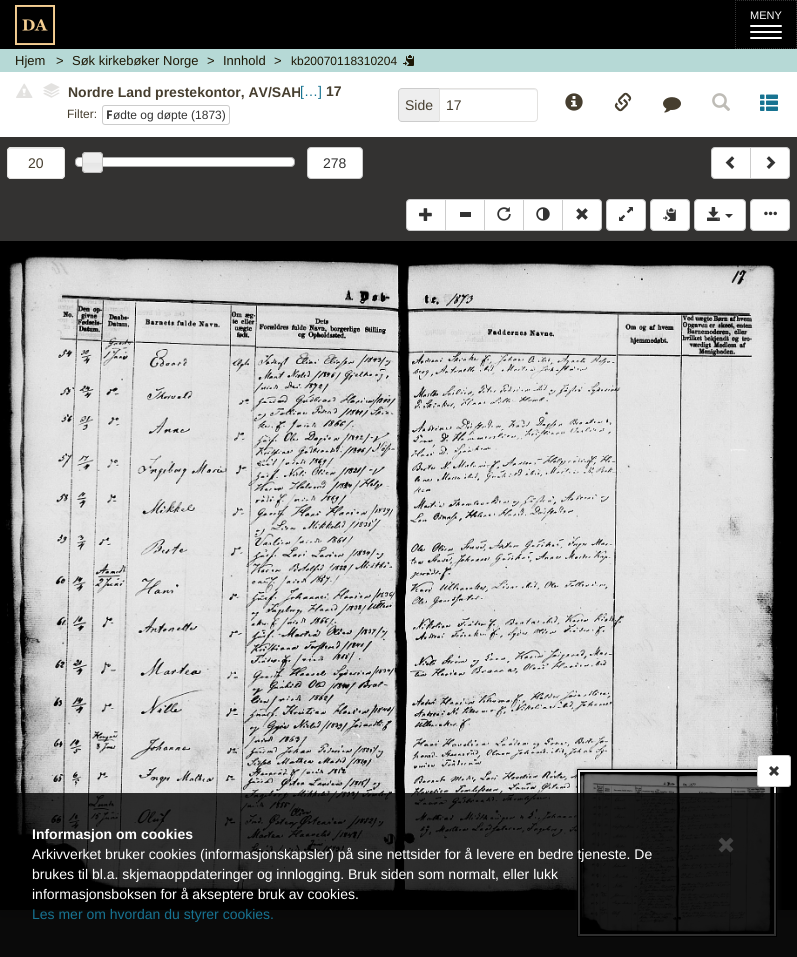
#include <cairo/cairo.h>
#include <math.h>
#include <stddef.h>


static void rounded_rect(cairo_t *cr, double x, double y, double w, double h, double r) {
  cairo_new_sub_path(cr);
  cairo_arc(cr, x + w - r, y + h - r, r, 0, M_PI / 2);
  cairo_arc(cr, x + r, y + h - r, r, M_PI / 2, M_PI);
  cairo_arc(cr, x + r, y + r, r, M_PI, 1.5 * M_PI);
  cairo_arc(cr, x + w - r, y + r, r, 1.5 * M_PI, 2 * M_PI);
  cairo_close_path(cr);
}

static void draw_shadow(cairo_t *cr, double x, double y, double w, double h, double r, double blur, double alpha) {
  cairo_push_group_with_content(cr, CAIRO_CONTENT_ALPHA);
  cairo_set_operator(cr, CAIRO_OPERATOR_SOURCE);
  for (int i = 15; i >= -15 && fmin(w, h) + blur * i / 3 > 0; i -= 2) {
    double e = blur * i / 6;
    cairo_set_source_rgba(cr, 0, 0, 0, alpha * erfc((i - 1) / 8.5) / 2);
    rounded_rect(cr, x - e, y - e, w + 2 * e, h + 2 * e, fmax(0, fmin(r + e + blur * .6, fmin(w, h) / 2 + e)));
    cairo_fill(cr);
  }
  cairo_pattern_t *soft = cairo_pop_group(cr);
  cairo_mask(cr, soft);
  cairo_pattern_destroy(soft);
}

static void draw_image(cairo_t *cr, const char *path, double x, double y, double w, double h) {
  cairo_surface_t *image = cairo_image_surface_create_from_png(path);
  cairo_save(cr);
  cairo_set_source_surface(cr, image, x, y);
  cairo_rectangle(cr, x, y, w, h);
  cairo_fill(cr);
  cairo_restore(cr);
  cairo_surface_destroy(image);
}

static void draw(cairo_t *cr) {
  cairo_set_source_rgb(cr, 51 / 255.0, 50 / 255.0, 49 / 255.0);
  cairo_paint(cr);
  cairo_set_source_rgb(cr, 0, 0, 0);
  cairo_rectangle(cr, 0, 0, 797, 49);
  cairo_fill(cr);
  draw_image(cr, "images/1.png", 15, 5, 40, 40);
  cairo_new_path(cr);
  cairo_move_to(cr, 735, 0.5);
  cairo_line_to(cr, 797, 0.5);
  cairo_move_to(cr, 796.5, 0);
  cairo_line_to(cr, 796.5, 49);
  cairo_move_to(cr, 735, 48.5);
  cairo_line_to(cr, 797, 48.5);
  cairo_move_to(cr, 735.5, 0);
  cairo_line_to(cr, 735.5, 49);
  cairo_set_source_rgb(cr, 51 / 255.0, 51 / 255.0, 51 / 255.0);
  cairo_set_line_width(cr, 1);
  cairo_set_dash(cr, (double[]){1, 1}, 2, 0);
  cairo_stroke(cr);
  cairo_set_source_rgb(cr, 1, 1, 1);
  rounded_rect(cr, 750, 25, 32, 2, 1);
  cairo_fill(cr);
  rounded_rect(cr, 750, 31, 32, 2, 1);
  cairo_fill(cr);
  rounded_rect(cr, 750, 37, 32, 2, 1);
  cairo_fill(cr);
  cairo_set_source_rgb(cr, 182 / 255.0, 217 / 255.0, 214 / 255.0);
  cairo_rectangle(cr, 0, 49, 797, 23);
  cairo_fill(cr);
  draw_image(cr, "images/2.png", 403, 55, 11, 11);
  cairo_set_source_rgb(cr, 1, 1, 1);
  cairo_rectangle(cr, 0, 72, 797, 65);
  cairo_fill(cr);
  draw_image(cr, "images/3.png", 16, 83, 17, 15);
  draw_image(cr, "images/8.png", 43, 92, 17, 6);
  draw_image(cr, "images/7.png", 45, 89, 14, 7);
  draw_image(cr, "images/6.png", 43, 89, 17, 6);
  draw_image(cr, "images/5.png", 45, 86, 14, 7);
  draw_image(cr, "images/4.png", 43, 83, 17, 9);
  rounded_rect(cr, 102.5, 105.5, 127, 19, 2.5);
  cairo_set_source_rgb(cr, 204 / 255.0, 204 / 255.0, 204 / 255.0);
  cairo_set_dash(cr, NULL, 0, 0);
  cairo_stroke(cr);
  cairo_set_source_rgb(cr, 238 / 255.0, 238 / 255.0, 238 / 255.0);
  cairo_new_path(cr);
  cairo_move_to(cr, 402, 88);
  cairo_line_to(cr, 439, 88);
  cairo_line_to(cr, 439, 122);
  cairo_line_to(cr, 402, 122);
  cairo_curve_to(cr, 400, 122, 398, 120, 398, 118);
  cairo_line_to(cr, 398, 92);
  cairo_curve_to(cr, 398, 90, 400, 88, 402, 88);
  cairo_close_path(cr);
  cairo_fill(cr);
  cairo_set_source_rgb(cr, 204 / 255.0, 204 / 255.0, 204 / 255.0);
  cairo_set_fill_rule(cr, CAIRO_FILL_RULE_EVEN_ODD);
  cairo_new_path(cr);
  cairo_move_to(cr, 402, 88);
  cairo_line_to(cr, 439, 88);
  cairo_line_to(cr, 439, 122);
  cairo_line_to(cr, 402, 122);
  cairo_curve_to(cr, 400, 122, 398, 120, 398, 118);
  cairo_line_to(cr, 398, 92);
  cairo_curve_to(cr, 398, 90, 400, 88, 402, 88);
  cairo_close_path(cr);
  cairo_move_to(cr, 402, 89);
  cairo_line_to(cr, 439, 89);
  cairo_line_to(cr, 439, 121);
  cairo_line_to(cr, 402, 121);
  cairo_curve_to(cr, 400, 121, 399, 120, 399, 118);
  cairo_line_to(cr, 399, 92);
  cairo_curve_to(cr, 399, 90, 400, 89, 402, 89);
  cairo_close_path(cr);
  cairo_fill(cr);
  cairo_set_source_rgb(cr, 236 / 255.0, 236 / 255.0, 236 / 255.0);
  cairo_set_fill_rule(cr, CAIRO_FILL_RULE_WINDING);
  cairo_new_path(cr);
  cairo_move_to(cr, 440, 90);
  cairo_line_to(cr, 534, 90);
  cairo_curve_to(cr, 536, 90, 537, 91, 537, 93);
  cairo_line_to(cr, 537, 92);
  cairo_curve_to(cr, 537, 90, 536, 89, 534, 89);
  cairo_line_to(cr, 440, 89);
  cairo_close_path(cr);
  cairo_fill(cr);
  cairo_new_path(cr);
  cairo_move_to(cr, 439.5, 88.5);
  cairo_line_to(cr, 534, 88.5);
  cairo_curve_to(cr, 536, 88.5, 537.5, 90, 537.5, 92);
  cairo_line_to(cr, 537.5, 118);
  cairo_curve_to(cr, 537.5, 120, 536, 121.5, 534, 121.5);
  cairo_line_to(cr, 439.5, 121.5);
  cairo_close_path(cr);
  cairo_set_source_rgb(cr, 227 / 255.0, 226 / 255.0, 224 / 255.0);
  cairo_stroke(cr);
  draw_image(cr, "images/9.png", 565, 93, 18, 18);
  draw_image(cr, "images/10.png", 614, 92, 18, 20);
  draw_image(cr, "images/11.png", 663, 97, 18, 16);
  draw_image(cr, "images/12.png", 712, 93, 18, 18);
  draw_image(cr, "images/13.png", 760, 94, 18, 17);
  cairo_set_source_rgb(cr, 1, 1, 1);
  rounded_rect(cr, 7, 147, 58, 32, 4);
  cairo_fill(cr);
  cairo_set_source_rgb(cr, 236 / 255.0, 236 / 255.0, 236 / 255.0);
  cairo_new_path(cr);
  cairo_move_to(cr, 11, 149);
  cairo_line_to(cr, 61, 149);
  cairo_curve_to(cr, 63, 149, 64, 150, 64, 152);
  cairo_curve_to(cr, 64, 146, 57, 148, 53, 148);
  cairo_line_to(cr, 19, 148);
  cairo_curve_to(cr, 15, 148, 8, 146, 8, 152);
  cairo_curve_to(cr, 8, 150, 9, 149, 11, 149);
  cairo_close_path(cr);
  cairo_fill(cr);
  rounded_rect(cr, 7.5, 147.5, 57, 31, 3.5);
  cairo_set_source_rgb(cr, 227 / 255.0, 226 / 255.0, 224 / 255.0);
  cairo_stroke(cr);
  cairo_set_source_rgb(cr, 1, 1, 1);
  rounded_rect(cr, 75.5, 157.5, 219, 9, 3.5);
  cairo_fill_preserve(cr);
  cairo_set_source_rgb(cr, 170 / 255.0, 170 / 255.0, 170 / 255.0);
  cairo_stroke(cr);
  draw_image(cr, "images/14.png", 82, 152, 21, 21);
  rounded_rect(cr, 82.5, 152.5, 20, 20, 3.5);
  cairo_set_source_rgb(cr, 191 / 255.0, 190 / 255.0, 189 / 255.0);
  cairo_stroke(cr);
  cairo_set_source_rgb(cr, 1, 1, 1);
  rounded_rect(cr, 307.5, 147.5, 55, 31, 3.5);
  cairo_fill_preserve(cr);
  cairo_set_source_rgb(cr, 204 / 255.0, 204 / 255.0, 204 / 255.0);
  cairo_stroke(cr);
  cairo_set_source_rgb(cr, 1, 1, 1);
  cairo_new_path(cr);
  cairo_move_to(cr, 715, 147.5);
  cairo_line_to(cr, 750.5, 147.5);
  cairo_line_to(cr, 750.5, 178.5);
  cairo_line_to(cr, 715, 178.5);
  cairo_curve_to(cr, 713, 178.5, 711.5, 177, 711.5, 175);
  cairo_line_to(cr, 711.5, 151);
  cairo_curve_to(cr, 711.5, 149, 713, 147.5, 715, 147.5);
  cairo_close_path(cr);
  cairo_fill_preserve(cr);
  cairo_set_source_rgb(cr, 204 / 255.0, 204 / 255.0, 204 / 255.0);
  cairo_stroke(cr);
  draw_image(cr, "images/15.png", 725, 156, 10, 13);
  cairo_set_source_rgb(cr, 1, 1, 1);
  cairo_new_path(cr);
  cairo_move_to(cr, 750.5, 147.5);
  cairo_line_to(cr, 786, 147.5);
  cairo_curve_to(cr, 788, 147.5, 789.5, 149, 789.5, 151);
  cairo_line_to(cr, 789.5, 175);
  cairo_curve_to(cr, 789.5, 177, 788, 178.5, 786, 178.5);
  cairo_line_to(cr, 750.5, 178.5);
  cairo_close_path(cr);
  cairo_fill_preserve(cr);
  cairo_set_source_rgb(cr, 204 / 255.0, 204 / 255.0, 204 / 255.0);
  cairo_stroke(cr);
  draw_image(cr, "images/16.png", 766, 156, 10, 13);
  cairo_set_source_rgb(cr, 1, 1, 1);
  cairo_new_path(cr);
  cairo_move_to(cr, 410, 199.5);
  cairo_line_to(cr, 445.5, 199.5);
  cairo_line_to(cr, 445.5, 230.5);
  cairo_line_to(cr, 410, 230.5);
  cairo_curve_to(cr, 408, 230.5, 406.5, 229, 406.5, 227);
  cairo_line_to(cr, 406.5, 203);
  cairo_curve_to(cr, 406.5, 201, 408, 199.5, 410, 199.5);
  cairo_close_path(cr);
  cairo_fill_preserve(cr);
  cairo_set_source_rgb(cr, 204 / 255.0, 204 / 255.0, 204 / 255.0);
  cairo_stroke(cr);
  draw_image(cr, "images/17.png", 419, 208, 13, 13);
  cairo_set_source_rgb(cr, 1, 1, 1);
  cairo_rectangle(cr, 445.5, 199.5, 39, 31);
  cairo_fill_preserve(cr);
  cairo_set_source_rgb(cr, 204 / 255.0, 204 / 255.0, 204 / 255.0);
  cairo_stroke(cr);
  cairo_set_source_rgb(cr, 51 / 255.0, 51 / 255.0, 51 / 255.0);
  cairo_rectangle(cr, 460, 212, 11, 5);
  cairo_fill(cr);
  cairo_set_source_rgb(cr, 1, 1, 1);
  cairo_rectangle(cr, 484.5, 199.5, 39, 31);
  cairo_fill_preserve(cr);
  cairo_set_source_rgb(cr, 204 / 255.0, 204 / 255.0, 204 / 255.0);
  cairo_stroke(cr);
  draw_image(cr, "images/18.png", 497, 207, 14, 14);
  cairo_set_source_rgb(cr, 1, 1, 1);
  cairo_rectangle(cr, 523.5, 199.5, 39, 31);
  cairo_fill_preserve(cr);
  cairo_set_source_rgb(cr, 204 / 255.0, 204 / 255.0, 204 / 255.0);
  cairo_stroke(cr);
  draw_image(cr, "images/19.png", 536, 207, 14, 14);
  cairo_set_source_rgb(cr, 1, 1, 1);
  cairo_new_path(cr);
  cairo_move_to(cr, 562.5, 199.5);
  cairo_line_to(cr, 598, 199.5);
  cairo_curve_to(cr, 600, 199.5, 601.5, 201, 601.5, 203);
  cairo_line_to(cr, 601.5, 227);
  cairo_curve_to(cr, 601.5, 229, 600, 230.5, 598, 230.5);
  cairo_line_to(cr, 562.5, 230.5);
  cairo_close_path(cr);
  cairo_fill_preserve(cr);
  cairo_set_source_rgb(cr, 204 / 255.0, 204 / 255.0, 204 / 255.0);
  cairo_stroke(cr);
  draw_image(cr, "images/20.png", 576, 208, 12, 12);
  cairo_set_source_rgb(cr, 1, 1, 1);
  rounded_rect(cr, 606.5, 199.5, 39, 31, 3.5);
  cairo_fill_preserve(cr);
  cairo_set_source_rgb(cr, 204 / 255.0, 204 / 255.0, 204 / 255.0);
  cairo_stroke(cr);
  draw_image(cr, "images/21.png", 619, 207, 14, 14);
  cairo_set_source_rgb(cr, 1, 1, 1);
  rounded_rect(cr, 650.5, 199.5, 39, 31, 3.5);
  cairo_fill_preserve(cr);
  cairo_set_source_rgb(cr, 204 / 255.0, 204 / 255.0, 204 / 255.0);
  cairo_stroke(cr);
  draw_image(cr, "images/22.png", 663, 208, 13, 13);
  cairo_set_source_rgb(cr, 1, 1, 1);
  rounded_rect(cr, 694.5, 199.5, 51, 31, 3.5);
  cairo_fill_preserve(cr);
  cairo_set_source_rgb(cr, 204 / 255.0, 204 / 255.0, 204 / 255.0);
  cairo_stroke(cr);
  draw_image(cr, "images/23.png", 707, 207, 13, 14);
  cairo_set_source_rgb(cr, 51 / 255.0, 51 / 255.0, 51 / 255.0);
  cairo_new_path(cr);
  cairo_move_to(cr, 725, 214);
  cairo_line_to(cr, 733, 214);
  cairo_line_to(cr, 729, 218);
  cairo_close_path(cr);
  cairo_fill(cr);
  cairo_set_source_rgb(cr, 1, 1, 1);
  rounded_rect(cr, 750.5, 199.5, 39, 31, 3.5);
  cairo_fill_preserve(cr);
  cairo_set_source_rgb(cr, 204 / 255.0, 204 / 255.0, 204 / 255.0);
  cairo_stroke(cr);
  draw_image(cr, "images/24.png", 764, 211, 13, 5);
  cairo_save(cr);
  cairo_rectangle(cr, 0, 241, 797, 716);
  cairo_clip(cr);
  cairo_set_source_rgb(cr, 0, 0, 0);
  draw_shadow(cr, 0, 242, 797, 669, 0, 7.5, 0.3);
  cairo_restore(cr);
  draw_image(cr, "images/25.png", 0, 241, 797, 669);
  cairo_set_source_rgb(cr, 50 / 255.0, 50 / 255.0, 50 / 255.0);
  draw_shadow(cr, 578, 770, 200, 168, 0, 2.5, 1);
  cairo_rectangle(cr, 577.5, 769.5, 199, 167);
  cairo_set_source_rgb(cr, 0, 0, 0);
  cairo_stroke(cr);
  draw_image(cr, "images/27.png", 580, 772, 194, 162);
  cairo_rectangle(cr, 579, 771, 196, 164);
  cairo_set_source_rgb(cr, 230 / 255.0, 230 / 255.0, 230 / 255.0);
  cairo_set_line_width(cr, 2);
  cairo_stroke(cr);
  cairo_set_source_rgb(cr, 0, 0, 0);
  draw_shadow(cr, 757, 756, 34, 32, 3, 0.5, 0.1);
  cairo_set_source_rgb(cr, 1, 1, 1);
  rounded_rect(cr, 757.5, 755.5, 33, 31, 2.5);
  cairo_fill_preserve(cr);
  cairo_set_source_rgb(cr, 204 / 255.0, 204 / 255.0, 204 / 255.0);
  cairo_set_line_width(cr, 1);
  cairo_stroke(cr);
  draw_image(cr, "images/26.png", 769, 766, 10, 10);
  cairo_set_source_rgba(cr, 0, 0, 0, 0.8);
  cairo_rectangle(cr, 0, 793, 797, 164);
  cairo_fill(cr);
  draw_image(cr, "images/28.png", 718, 837, 16, 16);
  cairo_select_font_face(cr, "Liberation Sans", CAIRO_FONT_SLANT_NORMAL, CAIRO_FONT_WEIGHT_NORMAL);
  cairo_set_font_size(cr, 11);
  cairo_set_source_rgb(cr, 1, 1, 1);
  cairo_move_to(cr, 750, 19);
  cairo_show_text(cr, "MENY");
  cairo_set_font_size(cr, 13);
  cairo_set_source_rgb(cr, 29 / 255.0, 23 / 255.0, 5 / 255.0);
  cairo_move_to(cr, 15, 65);
  cairo_show_text(cr, "Hjem");
  cairo_move_to(cr, 56, 65);
  cairo_show_text(cr, ">");
  cairo_move_to(cr, 72, 65);
  cairo_show_text(cr, "Søk kirkebøker Norge");
  cairo_move_to(cr, 207, 65);
  cairo_show_text(cr, ">");
  cairo_move_to(cr, 223, 65);
  cairo_show_text(cr, "Innhold");
  cairo_move_to(cr, 274, 65);
  cairo_show_text(cr, ">");
  cairo_set_font_size(cr, 12);
  cairo_move_to(cr, 291, 65);
  cairo_show_text(cr, "kb20070118310204");
  cairo_set_font_size(cr, 14);
  cairo_set_source_rgb(cr, 23 / 255.0, 115 / 255.0, 145 / 255.0);
  cairo_move_to(cr, 300, 96);
  cairo_show_text(cr, "[…]");
  cairo_select_font_face(cr, "Liberation Sans", CAIRO_FONT_SLANT_NORMAL, CAIRO_FONT_WEIGHT_BOLD);
  cairo_set_source_rgb(cr, 70 / 255.0, 62 / 255.0, 47 / 255.0);
  cairo_move_to(cr, 68, 97);
  cairo_show_text(cr, "Nordre Land prestekontor, AV/SAH");
  cairo_set_source_rgb(cr, 1, 1, 1);
  cairo_rectangle(cr, 300, 87, 1, 10);
  cairo_fill(cr);
  cairo_set_source_rgb(cr, 70 / 255.0, 62 / 255.0, 47 / 255.0);
  cairo_move_to(cr, 326, 96);
  cairo_show_text(cr, "17");
  cairo_select_font_face(cr, "Liberation Sans", CAIRO_FONT_SLANT_NORMAL, CAIRO_FONT_WEIGHT_NORMAL);
  cairo_set_font_size(cr, 12);
  cairo_move_to(cr, 67, 118);
  cairo_show_text(cr, "Filter:");
  cairo_select_font_face(cr, "Noto Sans", CAIRO_FONT_SLANT_NORMAL, CAIRO_FONT_WEIGHT_BOLD);
  cairo_set_source_rgb(cr, 51 / 255.0, 51 / 255.0, 51 / 255.0);
  cairo_move_to(cr, 106, 119);
  cairo_show_text(cr, "F");
  cairo_select_font_face(cr, "Liberation Sans", CAIRO_FONT_SLANT_NORMAL, CAIRO_FONT_WEIGHT_NORMAL);
  cairo_move_to(cr, 113, 119);
  cairo_show_text(cr, "ødte og døpte (1873)");
  cairo_set_font_size(cr, 14);
  cairo_set_source_rgb(cr, 70 / 255.0, 62 / 255.0, 47 / 255.0);
  cairo_move_to(cr, 405, 110);
  cairo_show_text(cr, "Side");
  cairo_move_to(cr, 446, 110);
  cairo_show_text(cr, "17");
  cairo_move_to(cr, 28, 168);
  cairo_show_text(cr, "20");
  cairo_set_source_rgb(cr, 51 / 255.0, 51 / 255.0, 51 / 255.0);
  cairo_move_to(cr, 323, 168);
  cairo_show_text(cr, "278");
  cairo_select_font_face(cr, "Liberation Sans", CAIRO_FONT_SLANT_NORMAL, CAIRO_FONT_WEIGHT_BOLD);
  cairo_set_source_rgb(cr, 1, 1, 1);
  cairo_move_to(cr, 32, 839);
  cairo_show_text(cr, "Informasjon om cookies");
  cairo_select_font_face(cr, "Liberation Sans", CAIRO_FONT_SLANT_NORMAL, CAIRO_FONT_WEIGHT_NORMAL);
  cairo_move_to(cr, 32, 859);
  cairo_show_text(cr, "Arkivverket bruker cookies (informasjonskapsler) på sine nettsider for å levere en bedre tjeneste. De");
  cairo_move_to(cr, 32, 879);
  cairo_show_text(cr, "brukes til bl.a. skjemaoppdateringer og innlogging. Bruk siden som normalt, eller lukk");
  cairo_move_to(cr, 32, 899);
  cairo_show_text(cr, "informasjonsboksen for å akseptere bruk av cookies.");
  cairo_set_source_rgb(cr, 23 / 255.0, 115 / 255.0, 145 / 255.0);
  cairo_move_to(cr, 32, 919);
  cairo_show_text(cr, "Les mer om hvordan du styrer cookies.");
}

int main(void) {
  cairo_surface_t *surface = cairo_image_surface_create(CAIRO_FORMAT_RGB24, 797, 957);
  cairo_t *cr = cairo_create(surface);
  cairo_font_options_t *options = cairo_font_options_create();
  cairo_font_options_set_hint_metrics(options, CAIRO_HINT_METRICS_OFF);
  cairo_font_options_set_hint_style(options, CAIRO_HINT_STYLE_NONE);
  cairo_set_font_options(cr, options);
  cairo_set_miter_limit(cr, 4);
  draw(cr);
  cairo_surface_write_to_png(surface, "out.png");
  cairo_font_options_destroy(options);
  cairo_destroy(cr);
  cairo_surface_destroy(surface);
  return 0;
}
